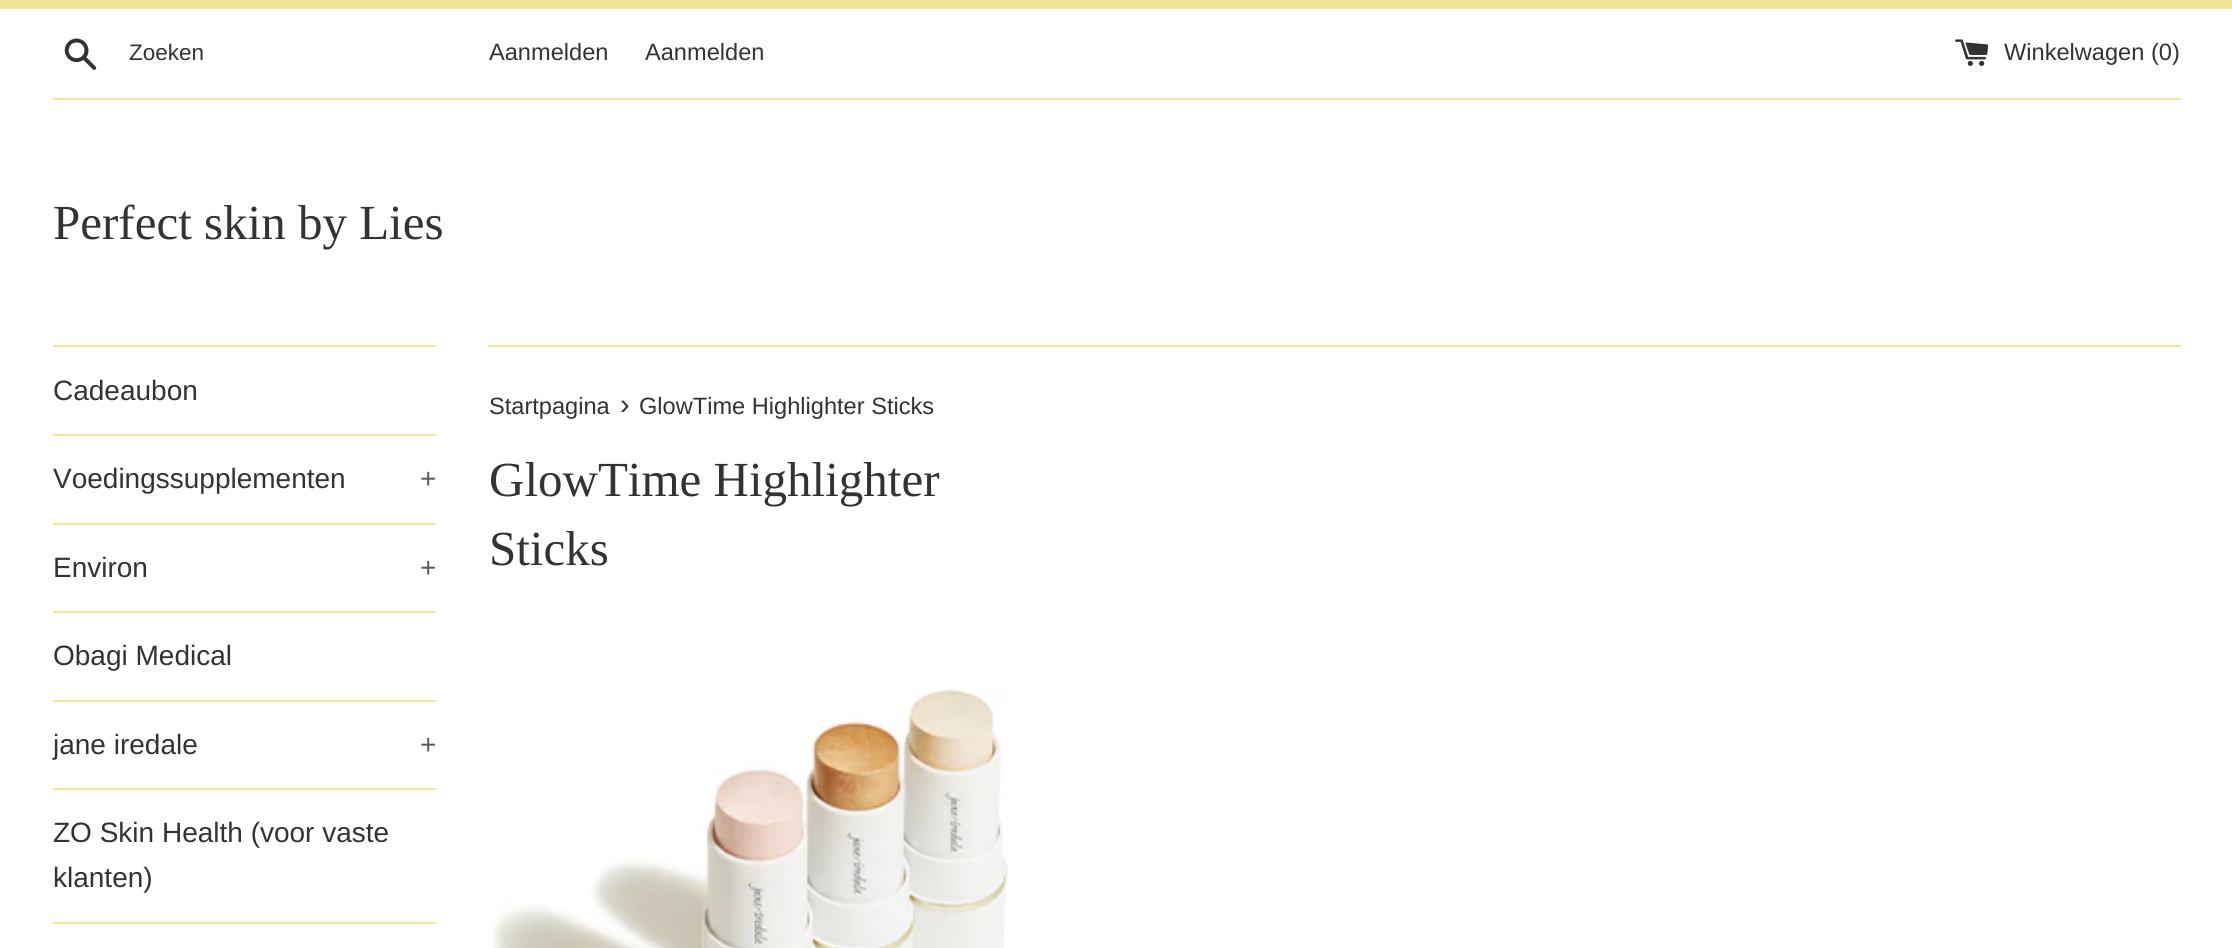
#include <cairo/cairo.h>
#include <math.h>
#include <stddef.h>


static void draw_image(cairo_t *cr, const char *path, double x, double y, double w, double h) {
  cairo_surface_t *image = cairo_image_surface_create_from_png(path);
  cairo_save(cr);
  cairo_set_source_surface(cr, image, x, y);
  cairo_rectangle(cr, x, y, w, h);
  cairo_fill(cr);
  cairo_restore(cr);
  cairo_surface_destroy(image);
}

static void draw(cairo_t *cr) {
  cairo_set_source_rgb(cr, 1, 1, 1);
  cairo_paint(cr);
  cairo_set_source_rgb(cr, 243 / 255.0, 229 / 255.0, 145 / 255.0);
  cairo_rectangle(cr, 0, 0, 2232, 9);
  cairo_fill(cr);
  draw_image(cr, "images/1.png", 64, 38, 33, 32);
  draw_image(cr, "images/2.png", 1955, 39, 34, 27);
  cairo_rectangle(cr, 53, 98, 2128, 2);
  cairo_fill(cr);
  cairo_rectangle(cr, 53, 345, 383, 2);
  cairo_fill(cr);
  cairo_rectangle(cr, 53, 434, 383, 2);
  cairo_fill(cr);
  cairo_rectangle(cr, 53, 523, 383, 2);
  cairo_fill(cr);
  cairo_rectangle(cr, 53, 611, 383, 2);
  cairo_fill(cr);
  cairo_rectangle(cr, 53, 700, 383, 2);
  cairo_fill(cr);
  cairo_rectangle(cr, 53, 788, 383, 2);
  cairo_fill(cr);
  cairo_rectangle(cr, 53, 922, 383, 2);
  cairo_fill(cr);
  cairo_rectangle(cr, 488, 345, 1693, 2);
  cairo_fill(cr);
  draw_image(cr, "images/3.png", 492, 688, 516, 260);
  cairo_select_font_face(cr, "Liberation Sans", CAIRO_FONT_SLANT_NORMAL, CAIRO_FONT_WEIGHT_NORMAL);
  cairo_set_font_size(cr, 22.5);
  cairo_set_source_rgb(cr, 51 / 255.0, 51 / 255.0, 51 / 255.0);
  cairo_move_to(cr, 129, 60);
  cairo_show_text(cr, "Zoeken");
  cairo_set_font_size(cr, 23.6);
  cairo_move_to(cr, 489, 60);
  cairo_show_text(cr, "Aanmelden");
  cairo_move_to(cr, 645, 60);
  cairo_show_text(cr, "Aanmelden");
  cairo_move_to(cr, 2004, 60);
  cairo_show_text(cr, "Winkelwagen (0)");
  cairo_select_font_face(cr, "Liberation Serif", CAIRO_FONT_SLANT_NORMAL, CAIRO_FONT_WEIGHT_NORMAL);
  cairo_set_font_size(cr, 49);
  cairo_move_to(cr, 53, 239);
  cairo_show_text(cr, "Perfect skin by Lies");
  cairo_select_font_face(cr, "Liberation Sans", CAIRO_FONT_SLANT_NORMAL, CAIRO_FONT_WEIGHT_NORMAL);
  cairo_set_font_size(cr, 28);
  cairo_move_to(cr, 53, 400);
  cairo_show_text(cr, "Cadeaubon");
  cairo_move_to(cr, 53, 488);
  cairo_show_text(cr, "Voedingssupplementen");
  cairo_set_source_rgb(cr, 92 / 255.0, 92 / 255.0, 92 / 255.0);
  cairo_move_to(cr, 420, 488);
  cairo_show_text(cr, "+");
  cairo_set_source_rgb(cr, 51 / 255.0, 51 / 255.0, 51 / 255.0);
  cairo_move_to(cr, 53, 577);
  cairo_show_text(cr, "Environ");
  cairo_set_source_rgb(cr, 92 / 255.0, 92 / 255.0, 92 / 255.0);
  cairo_move_to(cr, 420, 577);
  cairo_show_text(cr, "+");
  cairo_set_source_rgb(cr, 51 / 255.0, 51 / 255.0, 51 / 255.0);
  cairo_move_to(cr, 53, 665);
  cairo_show_text(cr, "Obagi Medical");
  cairo_move_to(cr, 53, 754);
  cairo_show_text(cr, "jane iredale");
  cairo_set_source_rgb(cr, 92 / 255.0, 92 / 255.0, 92 / 255.0);
  cairo_move_to(cr, 420, 754);
  cairo_show_text(cr, "+");
  cairo_set_source_rgb(cr, 51 / 255.0, 51 / 255.0, 51 / 255.0);
  cairo_move_to(cr, 53, 842);
  cairo_show_text(cr, "ZO Skin Health (voor vaste");
  cairo_move_to(cr, 53, 887);
  cairo_show_text(cr, "klanten)");
  cairo_set_font_size(cr, 23.6);
  cairo_move_to(cr, 489, 414);
  cairo_show_text(cr, "Startpagina");
  cairo_set_font_size(cr, 29);
  cairo_move_to(cr, 620, 414);
  cairo_show_text(cr, "›");
  cairo_set_font_size(cr, 23.6);
  cairo_move_to(cr, 639, 414);
  cairo_show_text(cr, "GlowTime Highlighter Sticks");
  cairo_select_font_face(cr, "Liberation Serif", CAIRO_FONT_SLANT_NORMAL, CAIRO_FONT_WEIGHT_NORMAL);
  cairo_set_font_size(cr, 49);
  cairo_move_to(cr, 489, 496);
  cairo_show_text(cr, "GlowTime Highlighter");
  cairo_move_to(cr, 489, 565);
  cairo_show_text(cr, "Sticks");
}

int main(void) {
  cairo_surface_t *surface = cairo_image_surface_create(CAIRO_FORMAT_RGB24, 2232, 948);
  cairo_t *cr = cairo_create(surface);
  cairo_font_options_t *options = cairo_font_options_create();
  cairo_font_options_set_hint_metrics(options, CAIRO_HINT_METRICS_OFF);
  cairo_font_options_set_hint_style(options, CAIRO_HINT_STYLE_NONE);
  cairo_set_font_options(cr, options);
  cairo_set_miter_limit(cr, 4);
  draw(cr);
  cairo_surface_write_to_png(surface, "out.png");
  cairo_font_options_destroy(options);
  cairo_destroy(cr);
  cairo_surface_destroy(surface);
  return 0;
}
